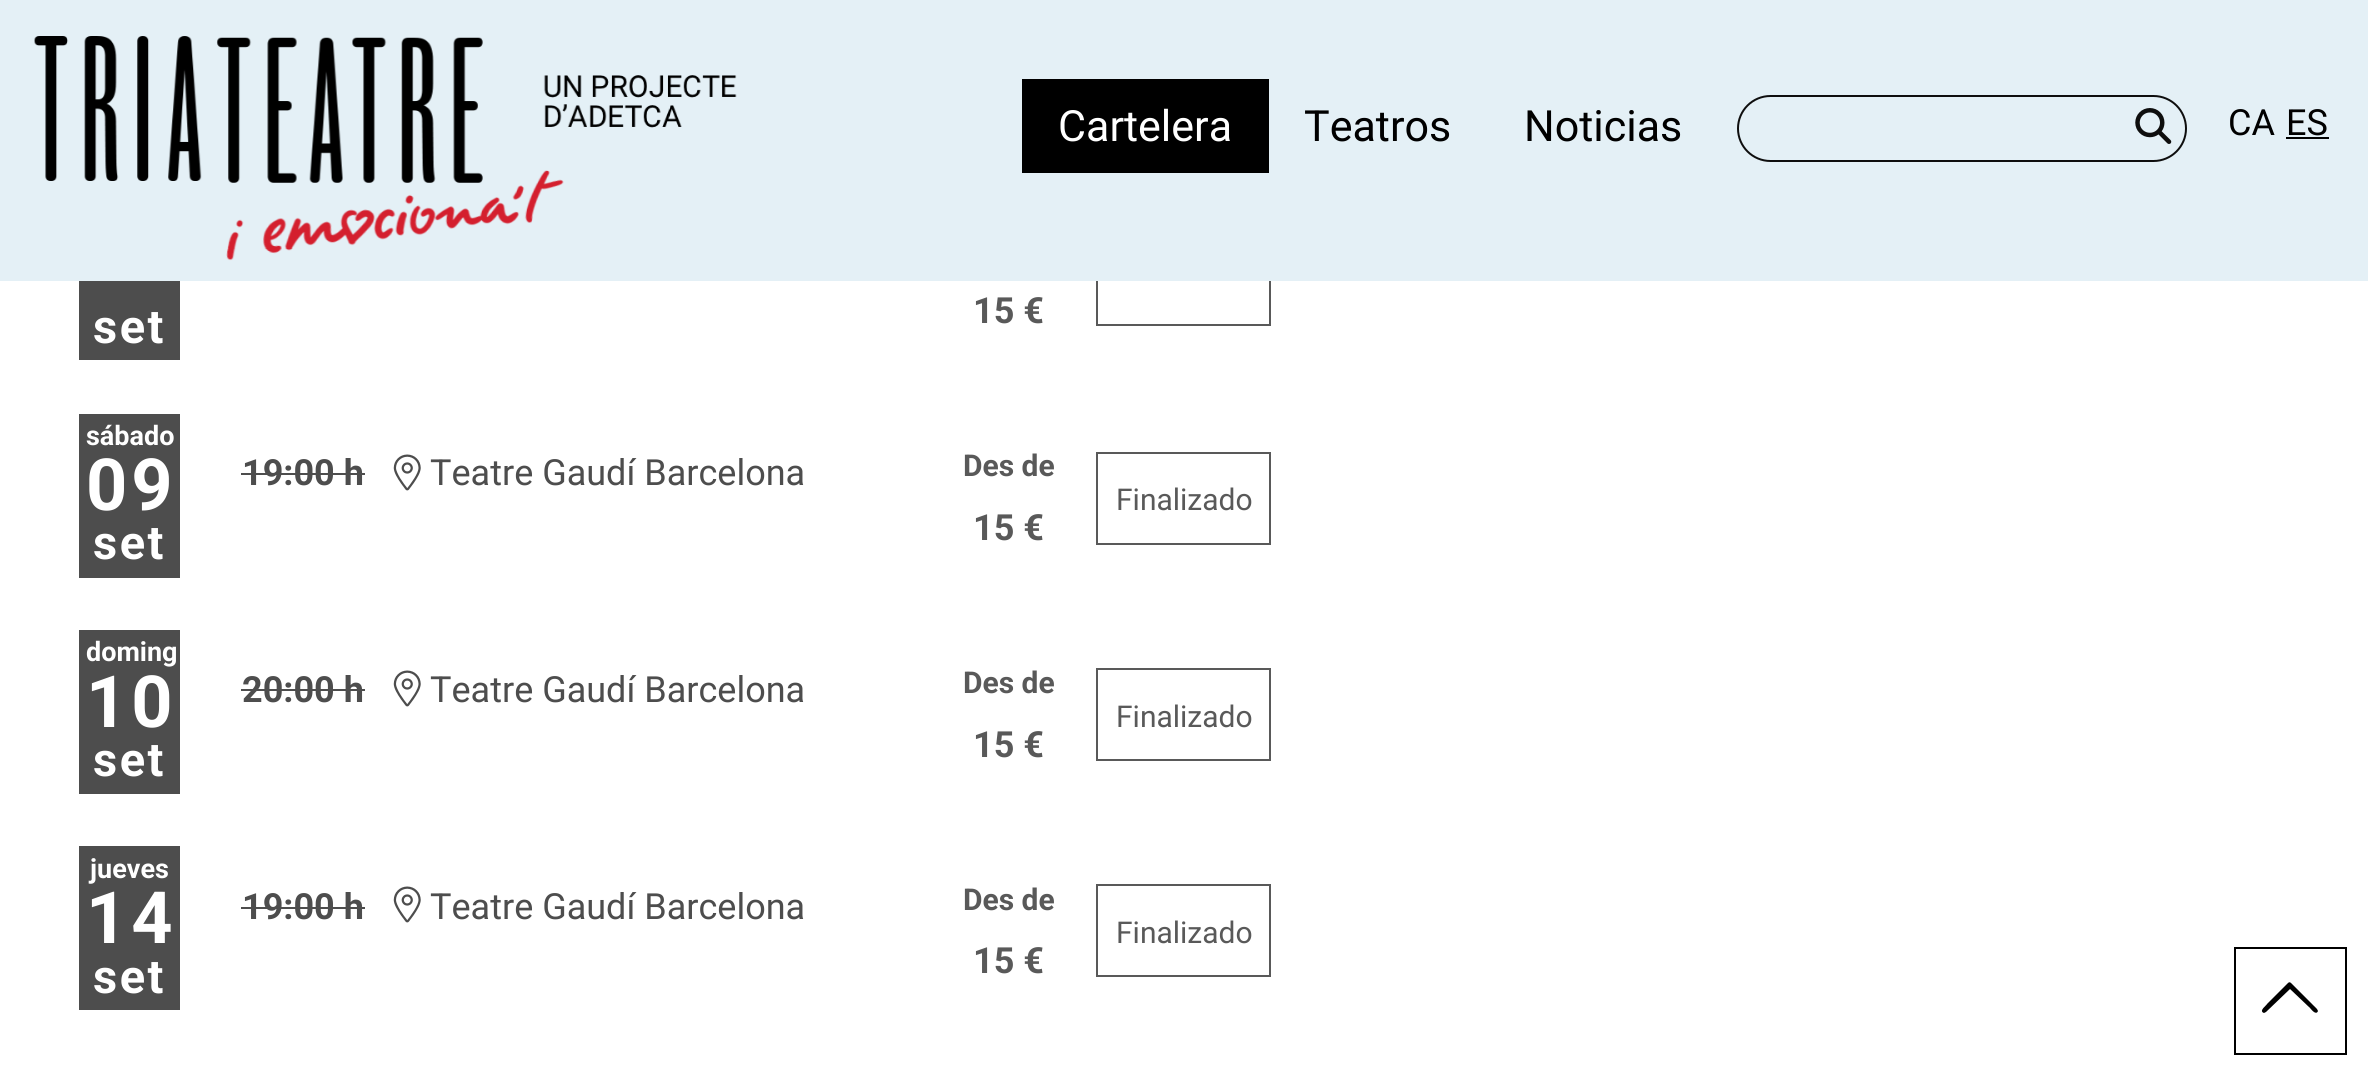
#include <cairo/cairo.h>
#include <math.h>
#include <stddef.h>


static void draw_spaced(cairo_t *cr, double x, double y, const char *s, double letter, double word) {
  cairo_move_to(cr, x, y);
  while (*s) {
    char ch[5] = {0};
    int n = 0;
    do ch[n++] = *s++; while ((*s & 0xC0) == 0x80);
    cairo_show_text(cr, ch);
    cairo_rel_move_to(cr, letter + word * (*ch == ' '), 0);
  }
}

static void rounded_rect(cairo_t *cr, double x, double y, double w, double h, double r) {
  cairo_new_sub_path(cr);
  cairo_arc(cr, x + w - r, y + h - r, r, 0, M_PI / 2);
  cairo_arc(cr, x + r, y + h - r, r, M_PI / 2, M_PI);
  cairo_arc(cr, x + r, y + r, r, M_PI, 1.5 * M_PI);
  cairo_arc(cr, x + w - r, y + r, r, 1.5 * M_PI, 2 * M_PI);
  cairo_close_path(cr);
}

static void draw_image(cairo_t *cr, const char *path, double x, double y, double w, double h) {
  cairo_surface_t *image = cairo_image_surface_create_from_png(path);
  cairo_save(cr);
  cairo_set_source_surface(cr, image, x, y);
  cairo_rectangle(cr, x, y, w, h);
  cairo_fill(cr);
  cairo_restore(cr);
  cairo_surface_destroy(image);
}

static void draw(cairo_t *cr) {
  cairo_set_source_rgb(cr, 1, 1, 1);
  cairo_paint(cr);
  cairo_rectangle(cr, 1097, 235, 173, 90);
  cairo_set_source_rgb(cr, 89 / 255.0, 89 / 255.0, 89 / 255.0);
  cairo_stroke(cr);
  cairo_set_source_rgb(cr, 228 / 255.0, 240 / 255.0, 246 / 255.0);
  cairo_rectangle(cr, 0, 0, 2368, 281);
  cairo_fill(cr);
  cairo_set_source_rgb(cr, 0, 0, 0);
  cairo_rectangle(cr, 1022, 79, 247, 94);
  cairo_fill(cr);
  draw_image(cr, "images/1.png", 34, 36, 703, 225);
  rounded_rect(cr, 1738, 96, 448, 65, 32.5);
  cairo_set_source_rgb(cr, 14 / 255.0, 14 / 255.0, 14 / 255.0);
  cairo_stroke(cr);
  draw_image(cr, "images/2.png", 2135, 108, 37, 36);
  cairo_set_source_rgb(cr, 0, 0, 0);
  cairo_rectangle(cr, 2286, 137, 43, 2);
  cairo_fill(cr);
  cairo_set_source_rgb(cr, 77 / 255.0, 77 / 255.0, 77 / 255.0);
  cairo_rectangle(cr, 79, 281, 101, 79);
  cairo_fill(cr);
  cairo_rectangle(cr, 79, 414, 101, 164);
  cairo_fill(cr);
  cairo_rectangle(cr, 241, 473, 124, 2);
  cairo_fill(cr);
  draw_image(cr, "images/3.png", 393, 454, 28, 37);
  cairo_rectangle(cr, 1097, 453, 173, 91);
  cairo_set_source_rgb(cr, 89 / 255.0, 89 / 255.0, 89 / 255.0);
  cairo_stroke(cr);
  cairo_set_source_rgb(cr, 77 / 255.0, 77 / 255.0, 77 / 255.0);
  cairo_rectangle(cr, 79, 630, 101, 164);
  cairo_fill(cr);
  cairo_rectangle(cr, 241, 689, 124, 2);
  cairo_fill(cr);
  draw_image(cr, "images/3.png", 393, 670, 28, 37);
  cairo_rectangle(cr, 1097, 669, 173, 91);
  cairo_set_source_rgb(cr, 89 / 255.0, 89 / 255.0, 89 / 255.0);
  cairo_stroke(cr);
  cairo_set_source_rgb(cr, 77 / 255.0, 77 / 255.0, 77 / 255.0);
  cairo_rectangle(cr, 79, 846, 101, 164);
  cairo_fill(cr);
  cairo_rectangle(cr, 241, 907, 124, 2);
  cairo_fill(cr);
  draw_image(cr, "images/3.png", 393, 886, 28, 37);
  cairo_rectangle(cr, 1097, 885, 173, 91);
  cairo_set_source_rgb(cr, 89 / 255.0, 89 / 255.0, 89 / 255.0);
  cairo_stroke(cr);
  cairo_rectangle(cr, 2235, 948, 111, 106);
  cairo_set_source_rgb(cr, 0, 0, 0);
  cairo_stroke(cr);
  cairo_new_path(cr);
  cairo_move_to(cr, 2288, 983);
  cairo_curve_to(cr, 2289, 982, 2290, 982, 2291, 983);
  cairo_line_to(cr, 2317, 1009);
  cairo_line_to(cr, 2318, 1011);
  cairo_curve_to(cr, 2316, 1016, 2311, 1009, 2310, 1008);
  cairo_line_to(cr, 2290, 989);
  cairo_line_to(cr, 2266, 1012);
  cairo_line_to(cr, 2264, 1013);
  cairo_curve_to(cr, 2258, 1011, 2267, 1005, 2267, 1004);
  cairo_close_path(cr);
  cairo_fill(cr);
  cairo_select_font_face(cr, "Roboto", CAIRO_FONT_SLANT_NORMAL, CAIRO_FONT_WEIGHT_NORMAL);
  cairo_set_font_size(cr, 43);
  cairo_set_source_rgb(cr, 1, 1, 1);
  cairo_move_to(cr, 1058, 141);
  cairo_show_text(cr, "Cartelera");
  cairo_set_source_rgb(cr, 0, 0, 0);
  cairo_move_to(cr, 1304, 141);
  cairo_show_text(cr, "Teatros");
  cairo_move_to(cr, 1524, 141);
  cairo_show_text(cr, "Noticias");
  cairo_set_font_size(cr, 36);
  cairo_move_to(cr, 2228, 135);
  cairo_show_text(cr, "CA");
  cairo_move_to(cr, 2286, 135);
  cairo_show_text(cr, "ES");
  cairo_select_font_face(cr, "Roboto", CAIRO_FONT_SLANT_NORMAL, CAIRO_FONT_WEIGHT_BOLD);
  cairo_set_font_size(cr, 47);
  cairo_set_source_rgb(cr, 1, 1, 1);
  draw_spaced(cr, 93, 343, "set", 2.5, 0);
  cairo_set_font_size(cr, 36);
  cairo_set_source_rgb(cr, 89 / 255.0, 89 / 255.0, 89 / 255.0);
  cairo_move_to(cr, 973, 323);
  cairo_show_text(cr, "15 €");
  cairo_set_font_size(cr, 27);
  cairo_set_source_rgb(cr, 1, 1, 1);
  cairo_move_to(cr, 86, 445);
  cairo_show_text(cr, "sábado");
  cairo_set_font_size(cr, 72);
  draw_spaced(cr, 86, 510, "09", 4, 0);
  cairo_set_font_size(cr, 47);
  draw_spaced(cr, 93, 559, "set", 2.5, 0);
  cairo_set_font_size(cr, 36);
  cairo_set_source_rgb(cr, 77 / 255.0, 77 / 255.0, 77 / 255.0);
  cairo_move_to(cr, 242, 485);
  cairo_show_text(cr, "19:00 h");
  cairo_select_font_face(cr, "Roboto", CAIRO_FONT_SLANT_NORMAL, CAIRO_FONT_WEIGHT_NORMAL);
  cairo_move_to(cr, 430, 485);
  cairo_show_text(cr, "Teatre Gaudí Barcelona");
  cairo_select_font_face(cr, "Roboto", CAIRO_FONT_SLANT_NORMAL, CAIRO_FONT_WEIGHT_BOLD);
  cairo_set_font_size(cr, 30);
  cairo_set_source_rgb(cr, 89 / 255.0, 89 / 255.0, 89 / 255.0);
  cairo_move_to(cr, 963, 476);
  cairo_show_text(cr, "Des de");
  cairo_set_font_size(cr, 36);
  cairo_move_to(cr, 973, 540);
  cairo_show_text(cr, "15 €");
  cairo_select_font_face(cr, "Roboto", CAIRO_FONT_SLANT_NORMAL, CAIRO_FONT_WEIGHT_NORMAL);
  cairo_set_font_size(cr, 30);
  cairo_move_to(cr, 1116, 510);
  cairo_show_text(cr, "Finalizado");
  cairo_select_font_face(cr, "Roboto", CAIRO_FONT_SLANT_NORMAL, CAIRO_FONT_WEIGHT_BOLD);
  cairo_set_font_size(cr, 27);
  cairo_set_source_rgb(cr, 1, 1, 1);
  cairo_move_to(cr, 86, 661);
  cairo_show_text(cr, "doming");
  cairo_set_font_size(cr, 72);
  draw_spaced(cr, 86, 727, "10", 4, 0);
  cairo_set_font_size(cr, 47);
  draw_spaced(cr, 93, 776, "set", 2.5, 0);
  cairo_set_font_size(cr, 36);
  cairo_set_source_rgb(cr, 77 / 255.0, 77 / 255.0, 77 / 255.0);
  cairo_move_to(cr, 242, 702);
  cairo_show_text(cr, "20:00 h");
  cairo_select_font_face(cr, "Roboto", CAIRO_FONT_SLANT_NORMAL, CAIRO_FONT_WEIGHT_NORMAL);
  cairo_move_to(cr, 430, 702);
  cairo_show_text(cr, "Teatre Gaudí Barcelona");
  cairo_select_font_face(cr, "Roboto", CAIRO_FONT_SLANT_NORMAL, CAIRO_FONT_WEIGHT_BOLD);
  cairo_set_font_size(cr, 30);
  cairo_set_source_rgb(cr, 89 / 255.0, 89 / 255.0, 89 / 255.0);
  cairo_move_to(cr, 963, 693);
  cairo_show_text(cr, "Des de");
  cairo_set_font_size(cr, 36);
  cairo_move_to(cr, 973, 757);
  cairo_show_text(cr, "15 €");
  cairo_select_font_face(cr, "Roboto", CAIRO_FONT_SLANT_NORMAL, CAIRO_FONT_WEIGHT_NORMAL);
  cairo_set_font_size(cr, 30);
  cairo_move_to(cr, 1116, 727);
  cairo_show_text(cr, "Finalizado");
  cairo_select_font_face(cr, "Roboto", CAIRO_FONT_SLANT_NORMAL, CAIRO_FONT_WEIGHT_BOLD);
  cairo_set_font_size(cr, 27);
  cairo_set_source_rgb(cr, 1, 1, 1);
  cairo_move_to(cr, 90, 878);
  cairo_show_text(cr, "jueves");
  cairo_set_font_size(cr, 72);
  draw_spaced(cr, 86, 943, "14", 4, 0);
  cairo_set_font_size(cr, 47);
  draw_spaced(cr, 93, 993, "set", 2.5, 0);
  cairo_set_font_size(cr, 36);
  cairo_set_source_rgb(cr, 77 / 255.0, 77 / 255.0, 77 / 255.0);
  cairo_move_to(cr, 242, 919);
  cairo_show_text(cr, "19:00 h");
  cairo_select_font_face(cr, "Roboto", CAIRO_FONT_SLANT_NORMAL, CAIRO_FONT_WEIGHT_NORMAL);
  cairo_move_to(cr, 430, 919);
  cairo_show_text(cr, "Teatre Gaudí Barcelona");
  cairo_select_font_face(cr, "Roboto", CAIRO_FONT_SLANT_NORMAL, CAIRO_FONT_WEIGHT_BOLD);
  cairo_set_font_size(cr, 30);
  cairo_set_source_rgb(cr, 89 / 255.0, 89 / 255.0, 89 / 255.0);
  cairo_move_to(cr, 963, 910);
  cairo_show_text(cr, "Des de");
  cairo_set_font_size(cr, 36);
  cairo_move_to(cr, 973, 973);
  cairo_show_text(cr, "15 €");
  cairo_select_font_face(cr, "Roboto", CAIRO_FONT_SLANT_NORMAL, CAIRO_FONT_WEIGHT_NORMAL);
  cairo_set_font_size(cr, 30);
  cairo_move_to(cr, 1116, 943);
  cairo_show_text(cr, "Finalizado");
}

int main(void) {
  cairo_surface_t *surface = cairo_image_surface_create(CAIRO_FORMAT_RGB24, 2368, 1077);
  cairo_t *cr = cairo_create(surface);
  cairo_font_options_t *options = cairo_font_options_create();
  cairo_font_options_set_hint_metrics(options, CAIRO_HINT_METRICS_OFF);
  cairo_font_options_set_hint_style(options, CAIRO_HINT_STYLE_NONE);
  cairo_set_font_options(cr, options);
  cairo_set_miter_limit(cr, 4);
  draw(cr);
  cairo_surface_write_to_png(surface, "out.png");
  cairo_font_options_destroy(options);
  cairo_destroy(cr);
  cairo_surface_destroy(surface);
  return 0;
}
